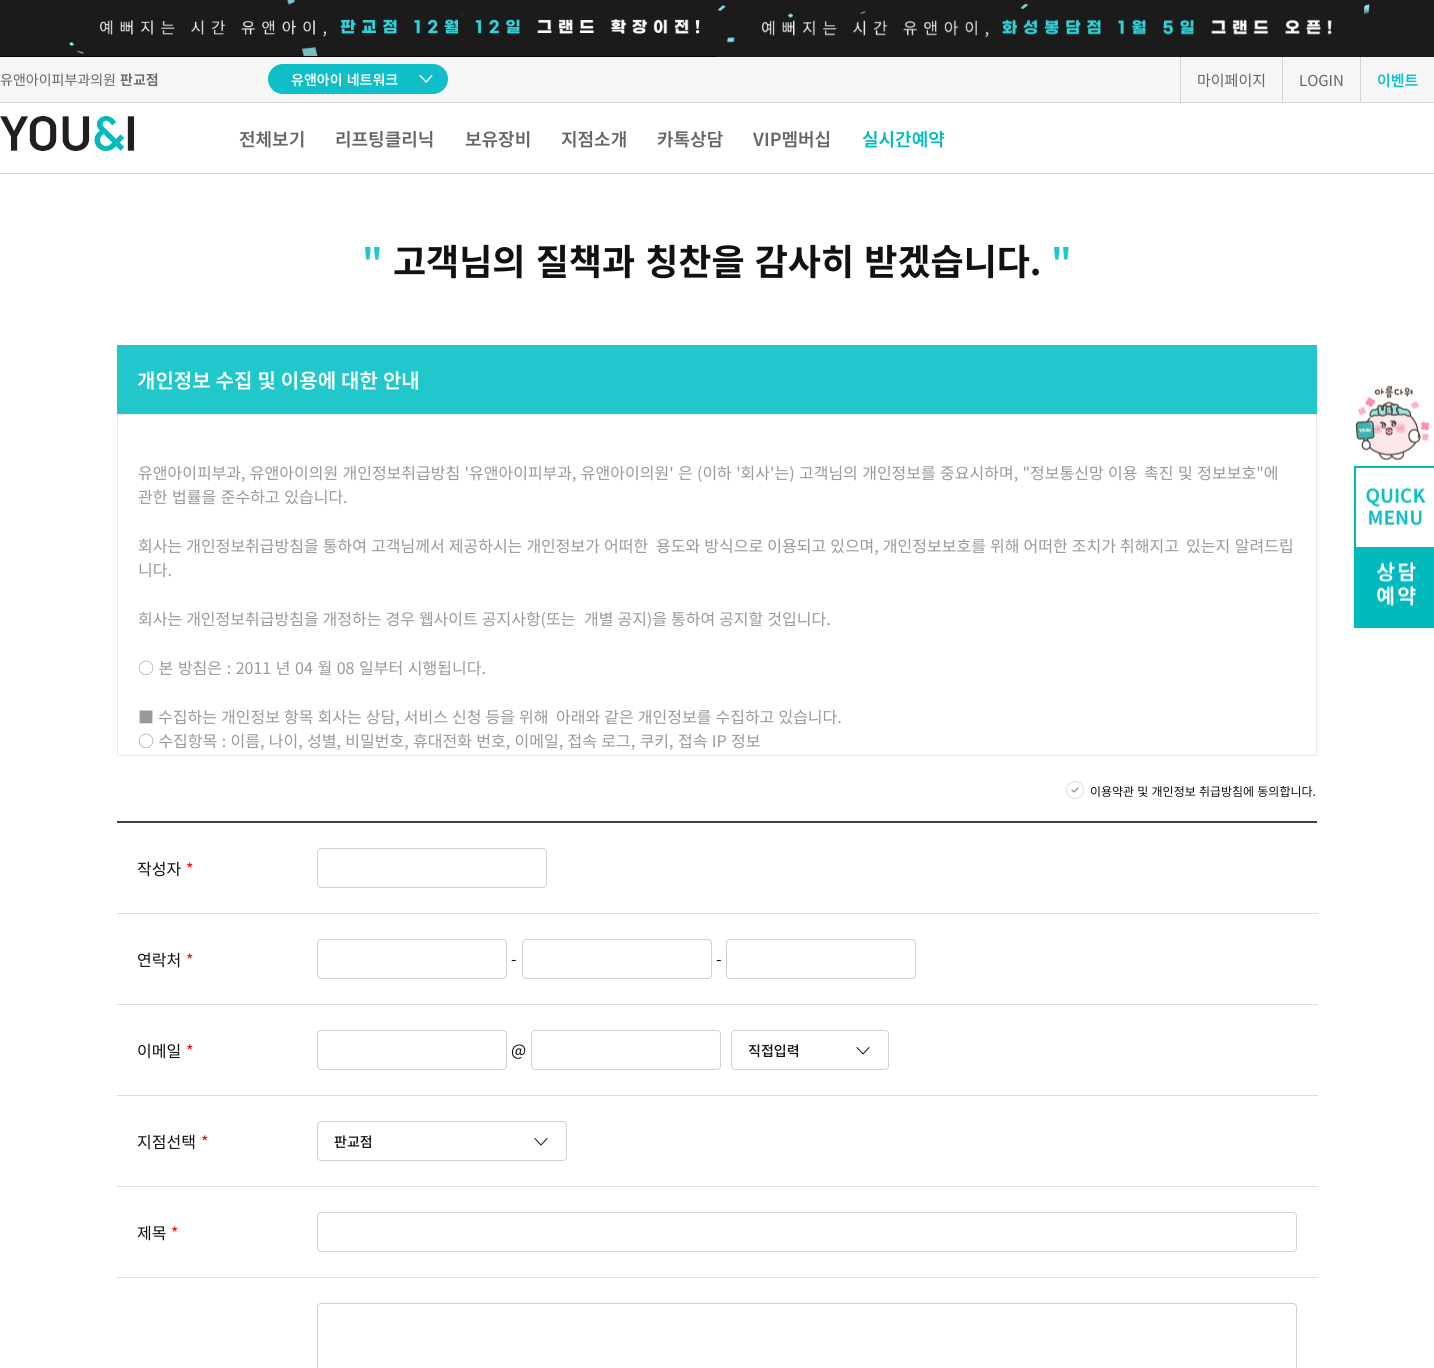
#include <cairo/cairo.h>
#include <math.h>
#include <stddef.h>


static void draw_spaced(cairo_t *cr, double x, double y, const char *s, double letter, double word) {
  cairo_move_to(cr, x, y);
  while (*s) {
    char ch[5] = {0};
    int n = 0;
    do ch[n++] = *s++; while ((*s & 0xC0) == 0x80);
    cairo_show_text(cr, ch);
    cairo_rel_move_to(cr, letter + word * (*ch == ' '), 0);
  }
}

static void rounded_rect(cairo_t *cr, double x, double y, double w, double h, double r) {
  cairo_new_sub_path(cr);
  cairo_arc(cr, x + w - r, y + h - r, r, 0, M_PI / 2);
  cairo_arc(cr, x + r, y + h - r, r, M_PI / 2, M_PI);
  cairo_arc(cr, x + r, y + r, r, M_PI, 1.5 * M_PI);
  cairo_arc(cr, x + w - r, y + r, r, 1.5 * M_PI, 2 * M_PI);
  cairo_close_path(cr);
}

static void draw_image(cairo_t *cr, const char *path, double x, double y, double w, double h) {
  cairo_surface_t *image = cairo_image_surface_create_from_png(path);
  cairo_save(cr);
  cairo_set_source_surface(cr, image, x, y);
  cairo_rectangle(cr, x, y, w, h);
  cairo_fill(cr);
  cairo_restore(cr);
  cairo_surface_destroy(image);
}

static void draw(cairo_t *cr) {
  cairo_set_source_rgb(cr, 1, 1, 1);
  cairo_paint(cr);
  cairo_set_source_rgb(cr, 0, 0, 0);
  cairo_rectangle(cr, 0, 56, 1434, 1);
  cairo_fill(cr);
  draw_image(cr, "images/1.png", 0, 0, 717, 56);
  draw_image(cr, "images/2.png", 717, 0, 717, 57);
  cairo_set_source_rgb(cr, 246 / 255.0, 246 / 255.0, 246 / 255.0);
  cairo_rectangle(cr, 0, 57, 1434, 45);
  cairo_fill(cr);
  cairo_set_source_rgb(cr, 212 / 255.0, 212 / 255.0, 212 / 255.0);
  cairo_rectangle(cr, 0, 102, 1434, 1);
  cairo_fill(cr);
  cairo_set_source_rgb(cr, 14 / 255.0, 191 / 255.0, 200 / 255.0);
  rounded_rect(cr, 268, 64, 180, 30, 15);
  cairo_fill(cr);
  draw_image(cr, "images/3.png", 419, 74, 14, 9);
  cairo_set_source_rgb(cr, 212 / 255.0, 212 / 255.0, 212 / 255.0);
  cairo_rectangle(cr, 1180, 57, 1, 45);
  cairo_fill(cr);
  cairo_rectangle(cr, 1282, 57, 1, 45);
  cairo_fill(cr);
  cairo_rectangle(cr, 1360, 57, 1, 45);
  cairo_fill(cr);
  cairo_rectangle(cr, 0, 173, 1434, 1);
  cairo_fill(cr);
  draw_image(cr, "images/4.png", 0, 115, 135, 37);
  cairo_set_source_rgb(cr, 32 / 255.0, 200 / 255.0, 203 / 255.0);
  cairo_rectangle(cr, 117, 345, 1200, 69);
  cairo_fill(cr);
  cairo_rectangle(cr, 117.5, 414.5, 1199, 341);
  cairo_set_source_rgb(cr, 233 / 255.0, 233 / 255.0, 233 / 255.0);
  cairo_set_line_width(cr, 1);
  cairo_stroke(cr);
  cairo_arc(cr, 1075, 790, 8.5, 0, 2 * M_PI);
  cairo_set_source_rgb(cr, 221 / 255.0, 221 / 255.0, 221 / 255.0);
  cairo_stroke(cr);
  cairo_new_path(cr);
  cairo_move_to(cr, 1072, 790);
  cairo_line_to(cr, 1074, 792);
  cairo_line_to(cr, 1078, 788);
  cairo_set_source_rgb(cr, 153 / 255.0, 153 / 255.0, 153 / 255.0);
  cairo_set_line_width(cr, 1.4);
  cairo_set_line_cap(cr, CAIRO_LINE_CAP_ROUND);
  cairo_set_line_join(cr, CAIRO_LINE_JOIN_ROUND);
  cairo_stroke(cr);
  cairo_set_source_rgb(cr, 67 / 255.0, 67 / 255.0, 67 / 255.0);
  cairo_rectangle(cr, 117, 821, 1200, 2);
  cairo_fill(cr);
  cairo_set_source_rgb(cr, 221 / 255.0, 221 / 255.0, 221 / 255.0);
  cairo_rectangle(cr, 117, 913, 1201, 1);
  cairo_fill(cr);
  rounded_rect(cr, 317.5, 848.5, 229, 39, 3.5);
  cairo_set_source_rgb(cr, 208 / 255.0, 208 / 255.0, 208 / 255.0);
  cairo_set_line_width(cr, 1);
  cairo_set_line_cap(cr, CAIRO_LINE_CAP_BUTT);
  cairo_set_line_join(cr, CAIRO_LINE_JOIN_MITER);
  cairo_stroke(cr);
  cairo_set_source_rgb(cr, 221 / 255.0, 221 / 255.0, 221 / 255.0);
  cairo_rectangle(cr, 117, 1004, 1201, 1);
  cairo_fill(cr);
  rounded_rect(cr, 317.5, 939.5, 189, 39, 3.5);
  cairo_set_source_rgb(cr, 208 / 255.0, 208 / 255.0, 208 / 255.0);
  cairo_stroke(cr);
  rounded_rect(cr, 522.5, 939.5, 189, 39, 3.5);
  cairo_stroke(cr);
  rounded_rect(cr, 726.5, 939.5, 189, 39, 3.5);
  cairo_stroke(cr);
  cairo_set_source_rgb(cr, 221 / 255.0, 221 / 255.0, 221 / 255.0);
  cairo_rectangle(cr, 117, 1095, 1201, 1);
  cairo_fill(cr);
  rounded_rect(cr, 317.5, 1030.5, 189, 39, 3.5);
  cairo_set_source_rgb(cr, 208 / 255.0, 208 / 255.0, 208 / 255.0);
  cairo_stroke(cr);
  rounded_rect(cr, 531.5, 1030.5, 189, 39, 3.5);
  cairo_stroke(cr);
  cairo_new_path(cr);
  cairo_move_to(cr, 857, 1047.5);
  cairo_line_to(cr, 863, 1054);
  cairo_line_to(cr, 869, 1047.5);
  cairo_set_source_rgb(cr, 17 / 255.0, 17 / 255.0, 17 / 255.0);
  cairo_set_line_cap(cr, CAIRO_LINE_CAP_ROUND);
  cairo_set_line_join(cr, CAIRO_LINE_JOIN_ROUND);
  cairo_stroke(cr);
  rounded_rect(cr, 731.5, 1030.5, 157, 39, 3.5);
  cairo_set_source_rgb(cr, 208 / 255.0, 208 / 255.0, 208 / 255.0);
  cairo_set_line_cap(cr, CAIRO_LINE_CAP_BUTT);
  cairo_set_line_join(cr, CAIRO_LINE_JOIN_MITER);
  cairo_stroke(cr);
  cairo_set_source_rgb(cr, 221 / 255.0, 221 / 255.0, 221 / 255.0);
  cairo_rectangle(cr, 117, 1186, 1201, 1);
  cairo_fill(cr);
  cairo_new_path(cr);
  cairo_move_to(cr, 535, 1138.5);
  cairo_line_to(cr, 541, 1145);
  cairo_line_to(cr, 547, 1138.5);
  cairo_set_source_rgb(cr, 17 / 255.0, 17 / 255.0, 17 / 255.0);
  cairo_set_line_cap(cr, CAIRO_LINE_CAP_ROUND);
  cairo_set_line_join(cr, CAIRO_LINE_JOIN_ROUND);
  cairo_stroke(cr);
  rounded_rect(cr, 317.5, 1121.5, 249, 39, 3.5);
  cairo_set_source_rgb(cr, 208 / 255.0, 208 / 255.0, 208 / 255.0);
  cairo_set_line_cap(cr, CAIRO_LINE_CAP_BUTT);
  cairo_set_line_join(cr, CAIRO_LINE_JOIN_MITER);
  cairo_stroke(cr);
  cairo_set_source_rgb(cr, 221 / 255.0, 221 / 255.0, 221 / 255.0);
  cairo_rectangle(cr, 117, 1277, 1201, 1);
  cairo_fill(cr);
  rounded_rect(cr, 317.5, 1212.5, 979, 39, 3.5);
  cairo_set_source_rgb(cr, 208 / 255.0, 208 / 255.0, 208 / 255.0);
  cairo_stroke(cr);
  rounded_rect(cr, 317.5, 1303.5, 979, 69, 3.5);
  cairo_stroke(cr);
  draw_image(cr, "images/5.png", 1355, 385, 75, 76);
  cairo_set_source_rgb(cr, 1 / 255.0, 186 / 255.0, 189 / 255.0);
  cairo_rectangle(cr, 1354, 466, 80, 2);
  cairo_fill(cr);
  cairo_rectangle(cr, 1354, 626, 80, 2);
  cairo_fill(cr);
  cairo_rectangle(cr, 1354, 466, 2, 162);
  cairo_fill(cr);
  draw_image(cr, "images/6.png", 1366, 487, 60, 39);
  cairo_rectangle(cr, 1356, 547, 78, 79);
  cairo_fill(cr);
  draw_image(cr, "images/7.png", 1376, 561, 40, 45);
  cairo_select_font_face(cr, "Noto Sans KR", CAIRO_FONT_SLANT_NORMAL, CAIRO_FONT_WEIGHT_NORMAL);
  cairo_set_font_size(cr, 14);
  cairo_set_source_rgb(cr, 102 / 255.0, 102 / 255.0, 105 / 255.0);
  cairo_move_to(cr, 0, 85);
  cairo_show_text(cr, "유앤아이피부과의원");
  cairo_select_font_face(cr, "Noto Sans KR SemiBold", CAIRO_FONT_SLANT_NORMAL, CAIRO_FONT_WEIGHT_NORMAL);
  cairo_move_to(cr, 120, 85);
  cairo_show_text(cr, "판교점");
  cairo_set_source_rgb(cr, 1, 1, 1);
  draw_spaced(cr, 291, 85, "유앤아이 네트워크", 0, 1);
  cairo_select_font_face(cr, "Noto Sans KR", CAIRO_FONT_SLANT_NORMAL, CAIRO_FONT_WEIGHT_NORMAL);
  cairo_set_font_size(cr, 15);
  cairo_set_source_rgb(cr, 102 / 255.0, 102 / 255.0, 105 / 255.0);
  cairo_move_to(cr, 1197, 86);
  cairo_show_text(cr, "마이페이지");
  cairo_move_to(cr, 1299, 86);
  cairo_show_text(cr, "LOGIN");
  cairo_select_font_face(cr, "Noto Sans KR SemiBold", CAIRO_FONT_SLANT_NORMAL, CAIRO_FONT_WEIGHT_NORMAL);
  cairo_set_source_rgb(cr, 14 / 255.0, 191 / 255.0, 200 / 255.0);
  cairo_move_to(cr, 1377, 86);
  cairo_show_text(cr, "이벤트");
  cairo_set_font_size(cr, 18);
  cairo_set_source_rgb(cr, 102 / 255.0, 102 / 255.0, 105 / 255.0);
  cairo_move_to(cr, 239, 146);
  cairo_show_text(cr, "전체보기");
  cairo_move_to(cr, 335, 146);
  cairo_show_text(cr, "리프팅클리닉");
  cairo_move_to(cr, 465, 146);
  cairo_show_text(cr, "보유장비");
  cairo_move_to(cr, 561, 146);
  cairo_show_text(cr, "지점소개");
  cairo_move_to(cr, 657, 146);
  cairo_show_text(cr, "카톡상담");
  cairo_move_to(cr, 753, 146);
  cairo_show_text(cr, "VIP멤버십");
  cairo_set_source_rgb(cr, 0, 186 / 255.0, 190 / 255.0);
  cairo_move_to(cr, 862, 146);
  cairo_show_text(cr, "실시간예약");
  cairo_select_font_face(cr, "Noto Sans KR", CAIRO_FONT_SLANT_NORMAL, CAIRO_FONT_WEIGHT_BOLD);
  cairo_set_font_size(cr, 36);
  cairo_set_source_rgb(cr, 32 / 255.0, 200 / 255.0, 203 / 255.0);
  cairo_move_to(cr, 362, 275);
  cairo_show_text(cr, "\"");
  cairo_set_source_rgb(cr, 17 / 255.0, 17 / 255.0, 17 / 255.0);
  draw_spaced(cr, 393, 275, "고객님의 질책과 칭찬을 감사히 받겠습니다.", 0, 2);
  cairo_set_source_rgb(cr, 32 / 255.0, 200 / 255.0, 203 / 255.0);
  cairo_move_to(cr, 1051, 275);
  cairo_show_text(cr, "\"");
  cairo_select_font_face(cr, "Noto Sans KR SemiBold", CAIRO_FONT_SLANT_NORMAL, CAIRO_FONT_WEIGHT_NORMAL);
  cairo_set_font_size(cr, 20);
  cairo_set_source_rgb(cr, 1, 1, 1);
  draw_spaced(cr, 137, 388, "개인정보 수집 및 이용에 대한 안내", 0, 0.5);
  cairo_select_font_face(cr, "Noto Sans KR", CAIRO_FONT_SLANT_NORMAL, CAIRO_FONT_WEIGHT_NORMAL);
  cairo_set_font_size(cr, 16);
  cairo_set_source_rgb(cr, 153 / 255.0, 153 / 255.0, 153 / 255.0);
  draw_spaced(cr, 138, 479, "유앤아이피부과, 유앤아이의원 개인정보취급방침 '유앤아이피부과, 유앤아이의원' 은 (이하 '회사'는) 고객님의 개인정보를 중요시하며, \"정보통신망 이용", 0, 0.75);
  draw_spaced(cr, 1144, 479, "촉진 및 정보보호\"에", 0, 1);
  draw_spaced(cr, 138, 503, "관한 법률을 준수하고 있습니다.", 0, 1);
  draw_spaced(cr, 138, 552, "회사는 개인정보취급방침을 통하여 고객님께서 제공하시는 개인정보가 어떠한", 0, 0.5);
  draw_spaced(cr, 656, 552, "용도와 방식으로 이용되고 있으며, 개인정보보호를 위해 어떠한 조치가 취해지고", 0, 0.5);
  draw_spaced(cr, 1186, 552, "있는지 알려드립", 0, 1);
  cairo_move_to(cr, 138, 576);
  cairo_show_text(cr, "니다.");
  draw_spaced(cr, 138, 625, "회사는 개인정보취급방침을 개정하는 경우 웹사이트 공지사항(또는", 0, 0.4);
  draw_spaced(cr, 584, 625, "개별 공지)을 통하여 공지할 것입니다.", 0, 0.4);
  draw_spaced(cr, 138, 674, "○ 본 방침은 : 2011 년 04 월 08 일부터 시행됩니다.", 0, 1);
  draw_spaced(cr, 138, 723, "■ 수집하는 개인정보 항목 회사는 상담, 서비스 신청 등을 위해", 0, 0.5);
  draw_spaced(cr, 556, 723, "아래와 같은 개인정보를 수집하고 있습니다.", 0, 0.5);
  draw_spaced(cr, 138, 747, "○ 수집항목 : 이름, 나이, 성별, 비밀번호, 휴대전화 번호, 이메일, 접속 로그, 쿠키, 접속 IP 정보", 0, 0.8);
  cairo_set_font_size(cr, 12);
  cairo_set_source_rgb(cr, 17 / 255.0, 17 / 255.0, 17 / 255.0);
  draw_spaced(cr, 1090, 796, "이용약관 및 개인정보 취급방침에 동의합니다.", 0, 0.5);
  cairo_set_font_size(cr, 16);
  cairo_move_to(cr, 137, 875);
  cairo_show_text(cr, "작성자");
  cairo_set_source_rgb(cr, 1, 0, 0);
  cairo_move_to(cr, 186, 875);
  cairo_show_text(cr, "*");
  cairo_set_source_rgb(cr, 17 / 255.0, 17 / 255.0, 17 / 255.0);
  cairo_move_to(cr, 137, 966);
  cairo_show_text(cr, "연락처");
  cairo_set_source_rgb(cr, 1, 0, 0);
  cairo_move_to(cr, 186, 966);
  cairo_show_text(cr, "*");
  cairo_set_source_rgb(cr, 17 / 255.0, 17 / 255.0, 17 / 255.0);
  cairo_move_to(cr, 511, 965);
  cairo_show_text(cr, "-");
  cairo_move_to(cr, 716, 965);
  cairo_show_text(cr, "-");
  cairo_move_to(cr, 137, 1057);
  cairo_show_text(cr, "이메일");
  cairo_set_source_rgb(cr, 1, 0, 0);
  cairo_move_to(cr, 186, 1057);
  cairo_show_text(cr, "*");
  cairo_set_source_rgb(cr, 17 / 255.0, 17 / 255.0, 17 / 255.0);
  cairo_move_to(cr, 511, 1056);
  cairo_show_text(cr, "@");
  cairo_select_font_face(cr, "Noto Sans KR Medium", CAIRO_FONT_SLANT_NORMAL, CAIRO_FONT_WEIGHT_NORMAL);
  cairo_set_font_size(cr, 14);
  cairo_move_to(cr, 748, 1056);
  cairo_show_text(cr, "직접입력");
  cairo_select_font_face(cr, "Noto Sans KR", CAIRO_FONT_SLANT_NORMAL, CAIRO_FONT_WEIGHT_NORMAL);
  cairo_set_font_size(cr, 16);
  cairo_move_to(cr, 137, 1148);
  cairo_show_text(cr, "지점선택");
  cairo_set_source_rgb(cr, 1, 0, 0);
  cairo_move_to(cr, 201, 1148);
  cairo_show_text(cr, "*");
  cairo_select_font_face(cr, "Noto Sans KR Medium", CAIRO_FONT_SLANT_NORMAL, CAIRO_FONT_WEIGHT_NORMAL);
  cairo_set_font_size(cr, 14);
  cairo_set_source_rgb(cr, 17 / 255.0, 17 / 255.0, 17 / 255.0);
  cairo_move_to(cr, 334, 1147);
  cairo_show_text(cr, "판교점");
  cairo_select_font_face(cr, "Noto Sans KR", CAIRO_FONT_SLANT_NORMAL, CAIRO_FONT_WEIGHT_NORMAL);
  cairo_set_font_size(cr, 16);
  cairo_move_to(cr, 137, 1239);
  cairo_show_text(cr, "제목");
  cairo_set_source_rgb(cr, 1, 0, 0);
  cairo_move_to(cr, 171, 1239);
  cairo_show_text(cr, "*");
}

int main(void) {
  cairo_surface_t *surface = cairo_image_surface_create(CAIRO_FORMAT_RGB24, 1434, 1368);
  cairo_t *cr = cairo_create(surface);
  cairo_font_options_t *options = cairo_font_options_create();
  cairo_font_options_set_hint_metrics(options, CAIRO_HINT_METRICS_OFF);
  cairo_font_options_set_hint_style(options, CAIRO_HINT_STYLE_NONE);
  cairo_set_font_options(cr, options);
  cairo_set_miter_limit(cr, 4);
  draw(cr);
  cairo_surface_write_to_png(surface, "out.png");
  cairo_font_options_destroy(options);
  cairo_destroy(cr);
  cairo_surface_destroy(surface);
  return 0;
}
